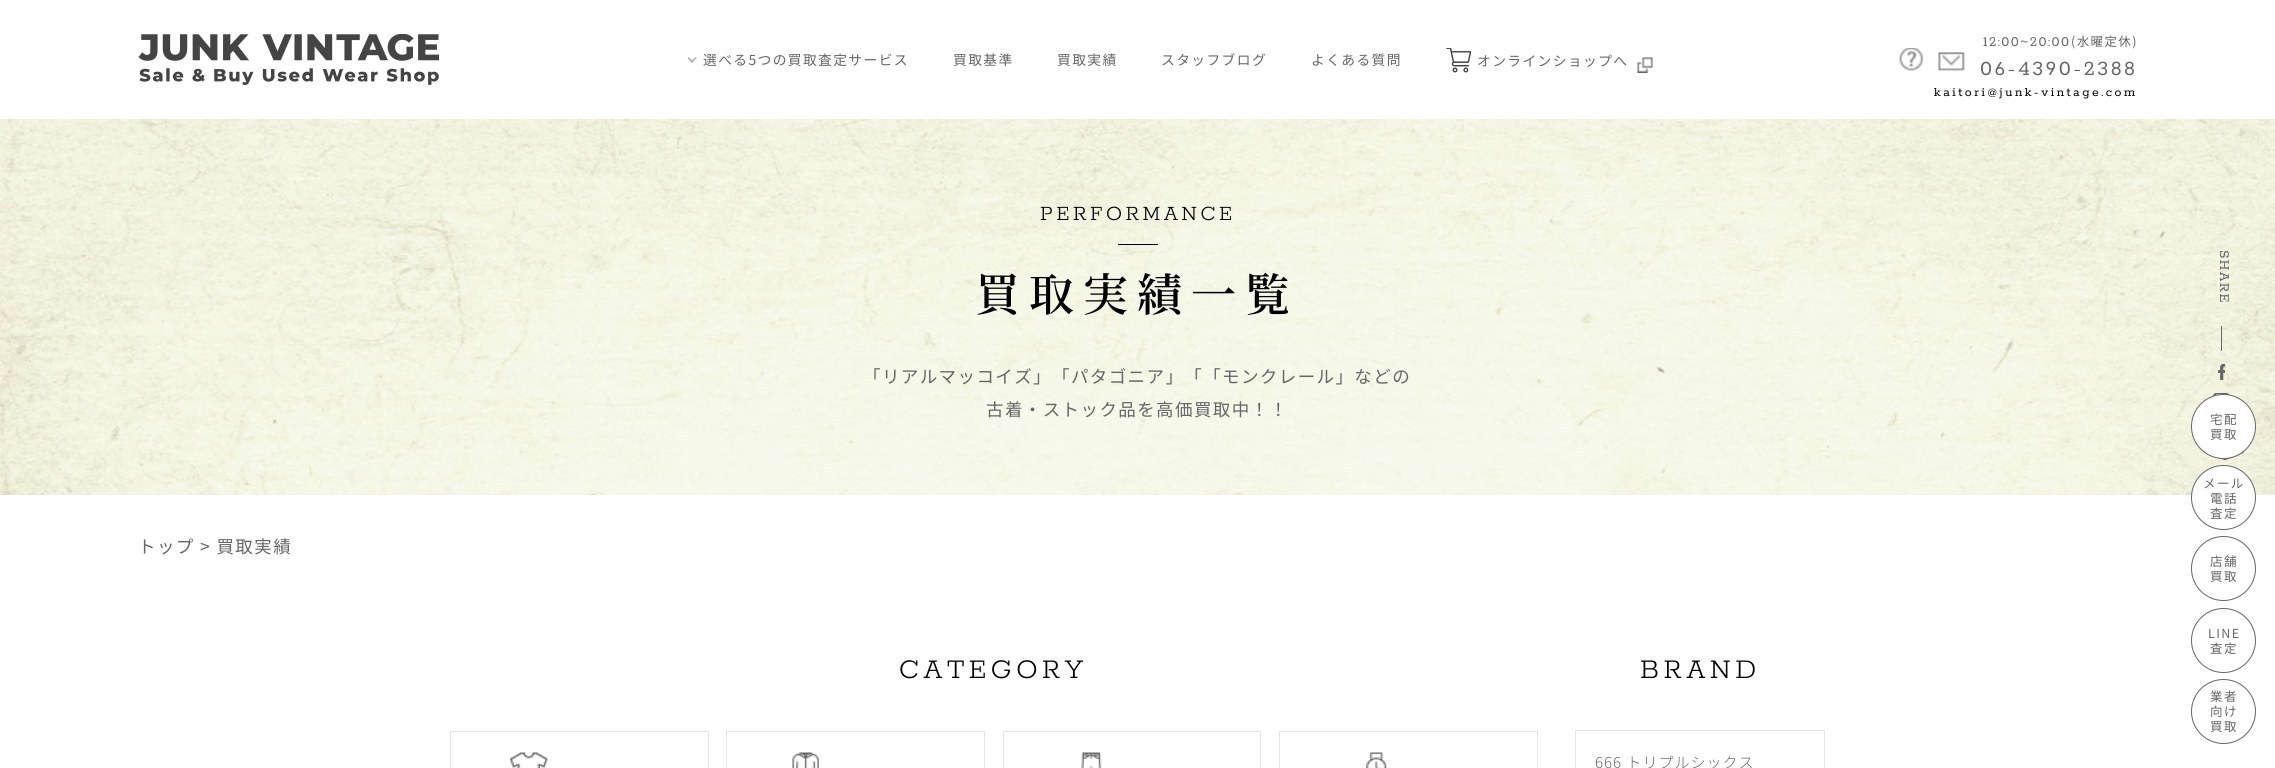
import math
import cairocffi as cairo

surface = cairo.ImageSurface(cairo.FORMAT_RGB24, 2275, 768)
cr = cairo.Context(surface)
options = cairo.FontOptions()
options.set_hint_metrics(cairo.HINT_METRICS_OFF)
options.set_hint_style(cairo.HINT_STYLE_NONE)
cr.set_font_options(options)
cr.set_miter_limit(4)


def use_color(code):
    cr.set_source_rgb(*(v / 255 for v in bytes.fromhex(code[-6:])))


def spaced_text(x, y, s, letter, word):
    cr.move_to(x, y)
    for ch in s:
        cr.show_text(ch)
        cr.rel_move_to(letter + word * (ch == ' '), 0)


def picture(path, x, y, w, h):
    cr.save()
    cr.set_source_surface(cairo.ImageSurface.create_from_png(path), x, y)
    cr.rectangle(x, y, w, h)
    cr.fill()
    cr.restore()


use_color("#ffffff")
cr.paint()
picture("img1.png", 138, 34, 301, 51)
picture("img2.png", 688, 57, 9, 6)
cr.select_font_face("Noto Sans JP")
cr.set_font_size(13.75)
use_color("#666666")
spaced_text(703, 65, "選べる5つの買取査定サービス", 1.4, 0)
spaced_text(953, 65, "買取基準", 1.4, 0)
spaced_text(1057, 65, "買取実績", 1.4, 0)
spaced_text(1161, 65, "スタッフブログ", 1.4, 0)
spaced_text(1311, 65, "よくある質問", 1.4, 0)
picture("img3.png", 1446, 48, 25, 25)
spaced_text(1477, 66, "オンラインショップへ", 1.4, 0)
picture("img4.png", 1637, 57, 16, 16)
picture("img5.png", 1899, 48, 24, 23)
cr.select_font_face("Rokkitt")
cr.set_font_size(15)
spaced_text(1983, 46, "12:00~20:00", 1.4, 0)
cr.select_font_face("Noto Sans JP")
cr.set_font_size(12.5)
spaced_text(2071, 46, "(水曜定休)", 1.4, 0)
cr.select_font_face("Rokkitt")
cr.set_font_size(22.5)
spaced_text(1980, 75, "06-4390-2388", 2.5, 0)
cr.set_font_size(13.75)
use_color("#000000")
spaced_text(1934, 96, "kaitori@junk-vintage.com", 2.5, 0)
picture("img6.png", 1938, 52, 27, 19)
picture("img7.png", 0, 119, 2275, 376)
cr.select_font_face("Rokkitt Light")
cr.set_font_size(22.5)
spaced_text(1040, 220, "PERFORMANCE", 3.4, 0)
cr.rectangle(1118, 244, 40, 1)
cr.fill()
cr.select_font_face("Noto Serif JP ExtraLight")
cr.set_font_size(45)
spaced_text(975, 311, "買取実績一覧", 9, 0)
cr.select_font_face("Noto Sans JP")
cr.set_font_size(17.5)
use_color("#666666")
spaced_text(863, 383, "「リアルマッコイズ」「パタゴニア」「「モンクレール」などの", 1.4, 0)
spaced_text(986, 416, "古着・ストック品を高価買取中！！", 1.4, 0)
cr.select_font_face("Rokkitt")
cr.set_font_size(15)
cr.save()
cr.translate(2220, 250)
cr.rotate(90 * math.pi / 180)
spaced_text(0, 0, "SHARE", 1.4, 0)
cr.restore()
cr.rectangle(2221, 326, 1, 25)
cr.fill()
picture("img8.png", 2218, 364, 7, 16)
picture("img9.png", 2213, 393, 17, 3)
picture("img10.png", 2206, 451, 38, 10)
cr.select_font_face("Noto Sans JP")
cr.set_font_size(17.5)
spaced_text(138, 553, "トップ > 買取実績", 1.4, 0)
cr.select_font_face("Rokkitt Light")
cr.set_font_size(30)
use_color("#000000")
spaced_text(899, 678, "CATEGORY", 4.5, 0)
cr.rectangle(450.5, 731.5, 258, 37)
use_color("#e5e5e5")
cr.set_line_width(1)
cr.stroke()
picture("img11.png", 510, 752, 38, 16)
cr.rectangle(726.5, 731.5, 258, 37)
cr.stroke()
picture("img12.png", 792, 752, 27, 16)
cr.rectangle(1003.5, 731.5, 257, 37)
cr.stroke()
picture("img13.png", 1081, 752, 21, 16)
cr.rectangle(1279.5, 731.5, 258, 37)
cr.stroke()
picture("img14.png", 1366, 752, 21, 16)
use_color("#000000")
spaced_text(1640, 678, "BRAND", 4.5, 0)
cr.rectangle(1575.5, 730.5, 249, 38)
use_color("#e5e5e5")
cr.stroke()
cr.select_font_face("Noto Sans JP Light")
cr.set_font_size(15)
use_color("#666666")
spaced_text(1595, 768, "666 トリプルシックス", 1, 0)
use_color("#ffffff")
cr.new_path()
cr.arc(2223.5, 426.5, 32, 0, 2 * math.pi)
cr.fill_preserve()
use_color("#666666")
cr.stroke()
cr.select_font_face("Noto Sans JP")
cr.set_font_size(12.5)
spaced_text(2210, 424, "宅配", 1.4, 0)
spaced_text(2210, 439, "買取", 1.4, 0)
use_color("#ffffff")
cr.new_path()
cr.arc(2223.5, 497.5, 32, 0, 2 * math.pi)
cr.fill_preserve()
use_color("#666666")
cr.stroke()
spaced_text(2203, 488, "メール", 1.4, 0)
spaced_text(2210, 503, "電話", 1.4, 0)
spaced_text(2210, 518, "査定", 1.4, 0)
cr.new_path()
cr.arc(2223.5, 568.5, 32, 0, 2 * math.pi)
cr.stroke()
spaced_text(2210, 566, "店舗", 1.4, 0)
spaced_text(2210, 581, "買取", 1.4, 0)
cr.new_path()
cr.arc(2223.5, 640.5, 32, 0, 2 * math.pi)
cr.stroke()
spaced_text(2208, 638, "LINE", 1.4, 0)
spaced_text(2210, 653, "査定", 1.4, 0)
cr.new_path()
cr.arc(2223.5, 711.5, 32, 0, 2 * math.pi)
cr.stroke()
spaced_text(2210, 701, "業者", 1.4, 0)
spaced_text(2210, 716, "向け", 1.4, 0)
spaced_text(2210, 731, "買取", 1.4, 0)
surface.write_to_png("result.png")
